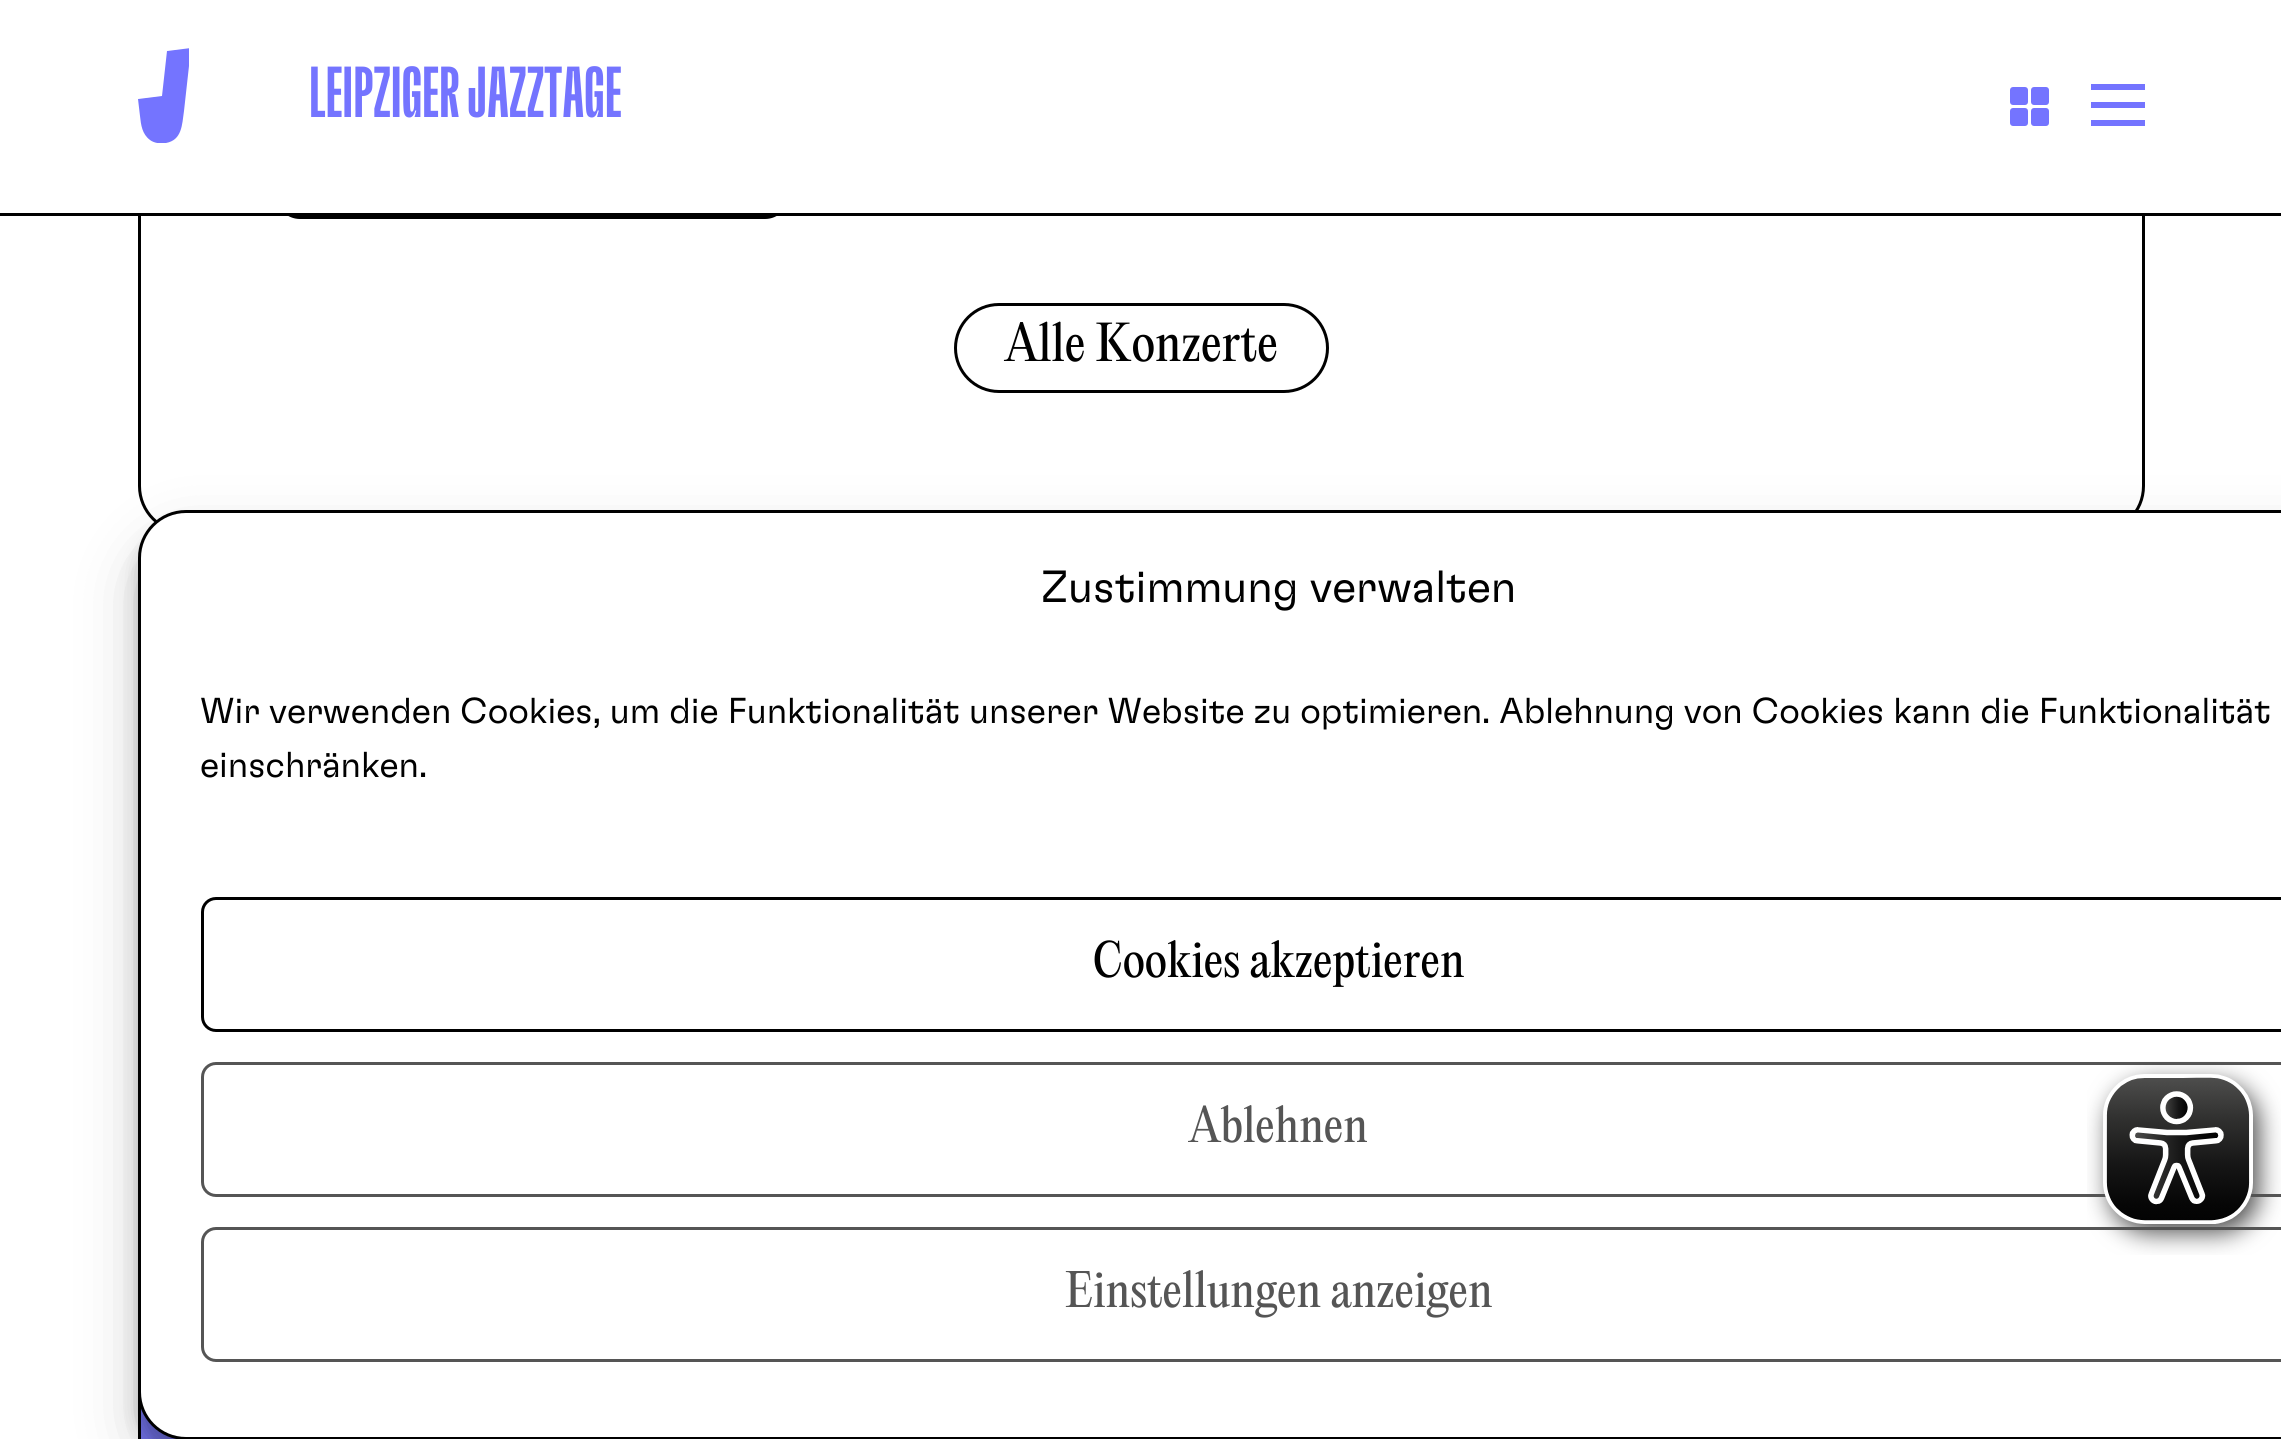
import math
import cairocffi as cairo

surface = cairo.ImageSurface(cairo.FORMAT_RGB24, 2281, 1439)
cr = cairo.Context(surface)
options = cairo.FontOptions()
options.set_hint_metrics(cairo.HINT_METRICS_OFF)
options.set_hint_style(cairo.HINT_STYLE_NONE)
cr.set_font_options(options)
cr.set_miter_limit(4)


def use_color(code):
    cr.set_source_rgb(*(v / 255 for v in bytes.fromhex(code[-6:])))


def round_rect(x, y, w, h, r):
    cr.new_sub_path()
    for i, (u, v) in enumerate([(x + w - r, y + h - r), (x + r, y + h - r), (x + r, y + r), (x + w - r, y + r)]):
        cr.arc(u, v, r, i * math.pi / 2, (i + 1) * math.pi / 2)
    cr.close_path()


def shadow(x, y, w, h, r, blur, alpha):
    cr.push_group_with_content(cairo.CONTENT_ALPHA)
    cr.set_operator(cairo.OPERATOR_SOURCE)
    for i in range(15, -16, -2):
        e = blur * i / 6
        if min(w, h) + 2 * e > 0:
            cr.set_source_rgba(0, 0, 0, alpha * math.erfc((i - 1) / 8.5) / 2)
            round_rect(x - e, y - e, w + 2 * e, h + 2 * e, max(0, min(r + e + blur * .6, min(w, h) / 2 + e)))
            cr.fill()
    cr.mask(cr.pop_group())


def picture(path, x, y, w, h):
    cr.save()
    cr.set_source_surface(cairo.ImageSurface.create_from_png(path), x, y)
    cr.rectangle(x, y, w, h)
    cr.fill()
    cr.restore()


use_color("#ffffff")
cr.paint()
round_rect(139.5, -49.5, 2004, 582, 46.5)
use_color("#000000")
cr.set_line_width(3)
cr.stroke()
round_rect(277.5, -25.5, 510, 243, 22.5)
cr.stroke()
use_color("#ffffff")
cr.rectangle(138, 0, 2007, 213)
cr.fill()
use_color("#000000")
cr.rectangle(0, 213, 2281, 3)
cr.fill()
cr.save()
cr.rectangle(138, 48, 51, 95)
cr.clip()
use_color("#7474ff")
cr.new_path()
cr.move_to(162, 96)
cr.line_to(138, 99)
cr.line_to(140, 116)
cr.curve_to(141, 125, 142, 134, 150, 140)
cr.curve_to(154, 143, 160, 144, 166, 143)
cr.curve_to(182, 140, 182, 125, 184, 111)
cr.line_to(191, 48)
cr.line_to(167, 51)
cr.close_path()
cr.fill()
cr.restore()
cr.select_font_face("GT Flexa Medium")
cr.set_font_size(72)
use_color("#7474ff")
cr.move_to(309, 117)
cr.show_text("LEIPZIGER JAZZTAGE")
picture("img1.png", 2010, 87, 39, 39)
cr.rectangle(2091, 84, 54, 6)
cr.fill()
cr.rectangle(2091, 102, 54, 6)
cr.fill()
cr.rectangle(2091, 120, 54, 6)
cr.fill()
round_rect(955.5, 304.5, 372, 87, 43.5)
use_color("#000000")
cr.stroke()
cr.select_font_face("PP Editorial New")
cr.set_font_size(48)
cr.move_to(1005, 361)
cr.show_text("Alle Konzerte")
cr.rectangle(139.5, 679.5, 2004, 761)
cr.stroke()
picture("img2.png", 141, 1408, 36, 31)
cr.set_source_rgba(0.455, 0.455, 1, 0.9)
cr.rectangle(141, 1408, 36, 31)
cr.fill()
use_color("#000000")
shadow(138, 528, 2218, 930, 48, 9, 0.23)
shadow(138, 540, 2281, 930, 48, 30, 0.19)
use_color("#ffffff")
round_rect(139.5, 511.5, 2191, 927, 46.5)
cr.fill_preserve()
use_color("#000000")
cr.stroke()
cr.select_font_face("GT Flexa Light")
cr.set_font_size(45)
cr.move_to(1041, 602)
cr.show_text("Zustimmung verwalten")
cr.set_font_size(36)
cr.move_to(200, 723)
cr.show_text("Wir verwenden Cookies, um die Funktionalität unserer Website zu optimieren. Ablehnung von Cookies kann die Funktionalität")
cr.move_to(200, 777)
cr.show_text("einschränken.")
round_rect(202.5, 898.5, 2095, 132, 13.5)
cr.stroke()
cr.select_font_face("PP Editorial New")
cr.set_font_size(45)
cr.move_to(1093, 977)
cr.show_text("Cookies akzeptieren")
round_rect(202.5, 1063.5, 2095, 132, 13.5)
use_color("#555555")
cr.stroke()
cr.move_to(1189, 1142)
cr.show_text("Ablehnen")
round_rect(202.5, 1228.5, 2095, 132, 13.5)
cr.stroke()
cr.move_to(1065, 1307)
cr.show_text("Einstellungen anzeigen")
picture("img3.png", 2087, 1061, 194, 194)
surface.write_to_png("result.png")
